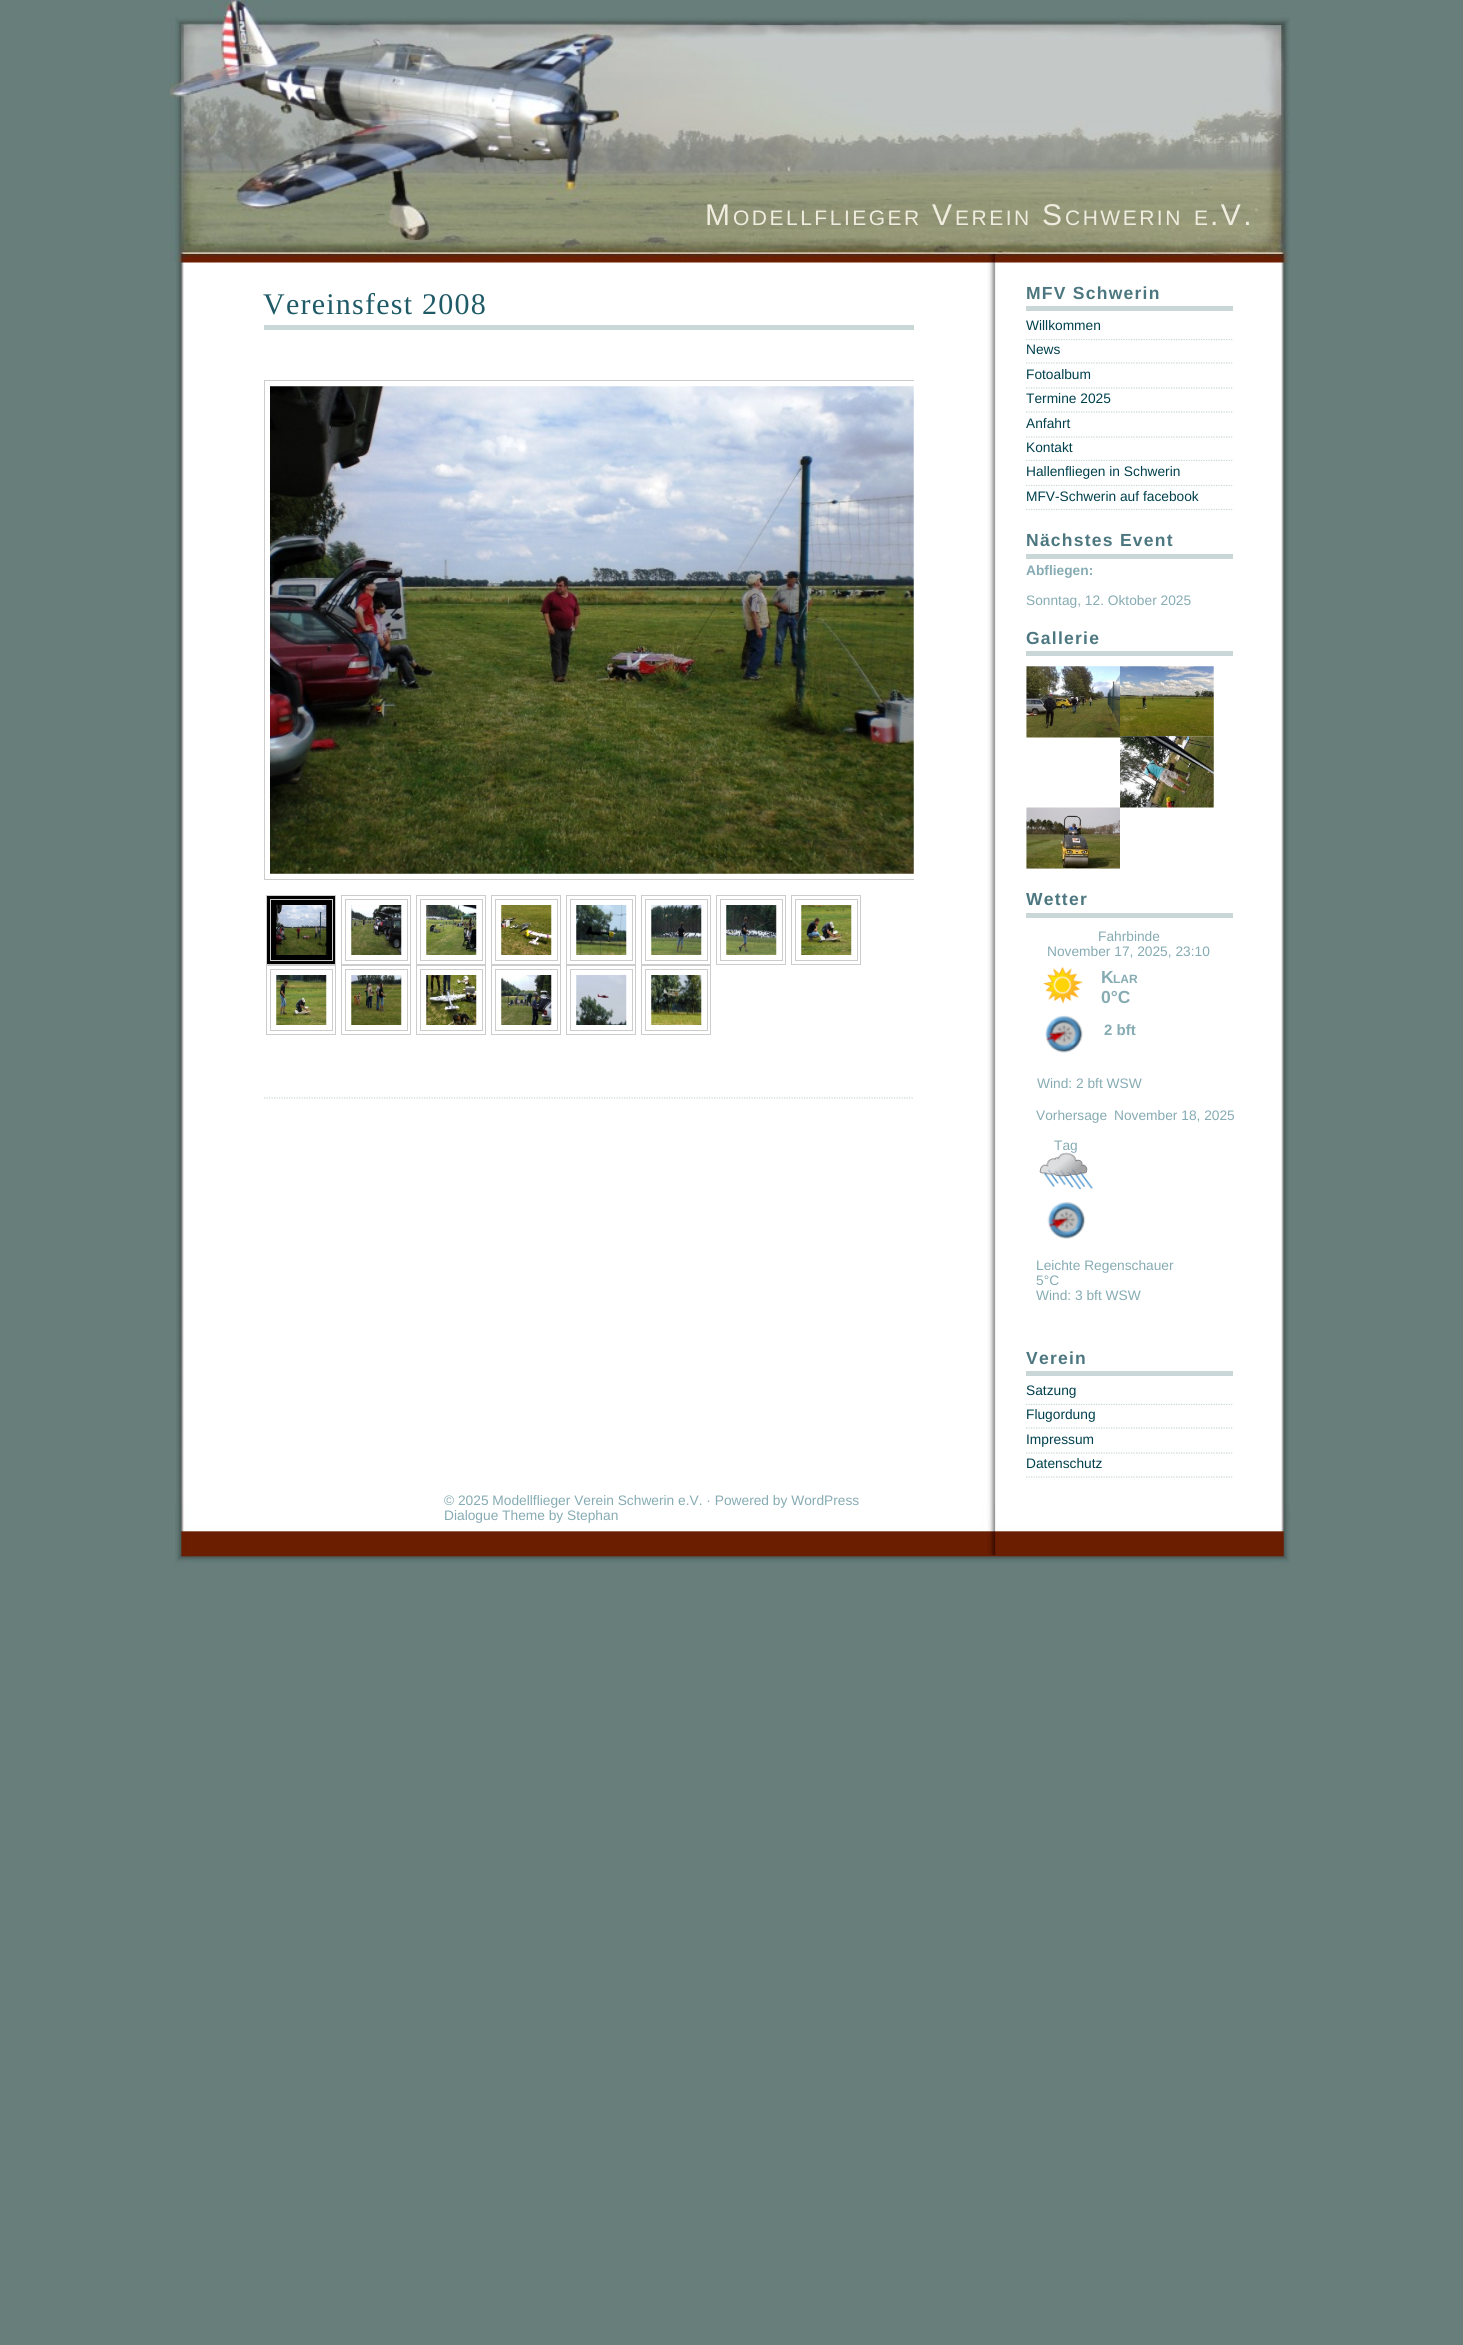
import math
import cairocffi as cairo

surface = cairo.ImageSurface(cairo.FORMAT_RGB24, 1463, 2345)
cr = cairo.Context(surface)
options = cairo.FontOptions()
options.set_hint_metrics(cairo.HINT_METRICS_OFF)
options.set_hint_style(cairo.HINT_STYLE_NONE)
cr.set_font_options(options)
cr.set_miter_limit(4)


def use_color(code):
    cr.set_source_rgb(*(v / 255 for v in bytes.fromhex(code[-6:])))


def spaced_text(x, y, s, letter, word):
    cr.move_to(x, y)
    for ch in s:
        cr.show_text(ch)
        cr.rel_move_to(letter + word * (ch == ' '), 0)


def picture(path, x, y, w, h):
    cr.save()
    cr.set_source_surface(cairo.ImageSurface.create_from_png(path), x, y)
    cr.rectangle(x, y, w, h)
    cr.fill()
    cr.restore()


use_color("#687e7b")
cr.paint()
picture("img1.png", 176, 262, 1113, 1243)
picture("img2.png", 170, 0, 1120, 263)
cr.select_font_face("Liberation Sans")
cr.set_font_size(30)
use_color("#f0ecdf")
spaced_text(705, 225, "M", 2.5, 0)
cr.set_font_size(21)
spaced_text(733, 225, "ODELLFLIEGER", 2.5, 0)
cr.set_font_size(30)
spaced_text(932, 225, "V", 2.5, 0)
cr.set_font_size(21)
spaced_text(955, 225, "EREIN", 2.5, 0)
cr.set_font_size(30)
spaced_text(1042, 225, "S", 2.5, 0)
cr.set_font_size(21)
spaced_text(1065, 225, "CHWERIN", 2.5, 0)
spaced_text(1194, 225, "E", 2.5, 0)
cr.set_font_size(30)
spaced_text(1210, 225, ".V.", 2.5, 0)
use_color("#cad7d9")
cr.rectangle(264, 325, 650, 5)
cr.fill()
cr.select_font_face("Liberation Serif")
use_color("#1f5a66")
spaced_text(263, 314, "Vereinsfest 2008", 1.25, 0)
cr.save()
cr.rectangle(264, 380, 650, 655)
cr.clip()
cr.rectangle(264.5, 380.5, 661, 499)
use_color("#cccccc")
cr.set_line_width(1)
cr.stroke()
cr.restore()
picture("img3.png", 270, 386, 644, 488)
use_color("#000000")
cr.rectangle(266.5, 895.5, 69, 69)
cr.fill_preserve()
use_color("#cccccc")
cr.set_line_width(1)
cr.stroke()
cr.rectangle(270.5, 899.5, 62, 61)
cr.stroke()
picture("img4.png", 276, 905, 51, 50)
cr.rectangle(341.5, 895.5, 69, 69)
cr.stroke()
cr.rectangle(345.5, 899.5, 62, 61)
cr.stroke()
picture("img5.png", 351, 905, 51, 50)
cr.rectangle(416.5, 895.5, 69, 69)
cr.stroke()
cr.rectangle(420.5, 899.5, 62, 61)
cr.stroke()
picture("img6.png", 426, 905, 51, 50)
cr.rectangle(491.5, 895.5, 69, 69)
cr.stroke()
cr.rectangle(495.5, 899.5, 62, 61)
cr.stroke()
picture("img7.png", 501, 905, 51, 50)
cr.rectangle(566.5, 895.5, 69, 69)
cr.stroke()
cr.rectangle(570.5, 899.5, 62, 61)
cr.stroke()
picture("img8.png", 576, 905, 51, 50)
cr.rectangle(641.5, 895.5, 69, 69)
cr.stroke()
cr.rectangle(645.5, 899.5, 62, 61)
cr.stroke()
picture("img9.png", 651, 905, 51, 50)
cr.rectangle(716.5, 895.5, 69, 69)
cr.stroke()
cr.rectangle(720.5, 899.5, 62, 61)
cr.stroke()
picture("img10.png", 726, 905, 51, 50)
cr.rectangle(791.5, 895.5, 69, 69)
cr.stroke()
cr.rectangle(795.5, 899.5, 62, 61)
cr.stroke()
picture("img11.png", 801, 905, 51, 50)
cr.rectangle(266.5, 965.5, 69, 69)
cr.stroke()
cr.rectangle(270.5, 969.5, 62, 61)
cr.stroke()
picture("img12.png", 276, 975, 51, 50)
cr.rectangle(341.5, 965.5, 69, 69)
cr.stroke()
cr.rectangle(345.5, 969.5, 62, 61)
cr.stroke()
picture("img13.png", 351, 975, 51, 50)
cr.rectangle(416.5, 965.5, 69, 69)
cr.stroke()
cr.rectangle(420.5, 969.5, 62, 61)
cr.stroke()
picture("img14.png", 426, 975, 51, 50)
cr.rectangle(491.5, 965.5, 69, 69)
cr.stroke()
cr.rectangle(495.5, 969.5, 62, 61)
cr.stroke()
picture("img15.png", 501, 975, 51, 50)
cr.rectangle(566.5, 965.5, 69, 69)
cr.stroke()
cr.rectangle(570.5, 969.5, 62, 61)
cr.stroke()
picture("img16.png", 576, 975, 51, 50)
cr.rectangle(641.5, 965.5, 69, 69)
cr.stroke()
cr.rectangle(645.5, 969.5, 62, 61)
cr.stroke()
picture("img17.png", 651, 975, 51, 50)
cr.new_path()
cr.move_to(264, 1098)
cr.line_to(914, 1098)
use_color("#cad6d9")
cr.set_line_width(1.2)
cr.set_dash([1.25, 1.25])
cr.stroke()
use_color("#cad7d9")
cr.rectangle(1026, 306, 207, 5)
cr.fill()
cr.select_font_face("Liberation Sans", cairo.FONT_SLANT_NORMAL, cairo.FONT_WEIGHT_BOLD)
cr.set_font_size(17.5)
use_color("#4d7780")
spaced_text(1026, 299, "MFV Schwerin", 1.25, 0)
cr.new_path()
cr.move_to(1026, 339.5)
cr.line_to(1232.5, 339.5)
use_color("#cad6d9")
cr.stroke()
cr.select_font_face("Liberation Sans")
cr.set_font_size(13.75)
use_color("#00404d")
cr.move_to(1026, 330)
cr.show_text("Willkommen")
cr.new_path()
cr.move_to(1026, 363)
cr.line_to(1232.5, 363)
use_color("#cad6d9")
cr.stroke()
use_color("#00404d")
cr.move_to(1026, 354)
cr.show_text("News")
cr.new_path()
cr.move_to(1026, 388)
cr.line_to(1232.5, 388)
use_color("#cad6d9")
cr.stroke()
use_color("#00404d")
cr.move_to(1026, 379)
cr.show_text("Fotoalbum")
cr.new_path()
cr.move_to(1026, 412)
cr.line_to(1232.5, 412)
use_color("#cad6d9")
cr.stroke()
use_color("#00404d")
cr.move_to(1026, 403)
cr.show_text("Termine 2025")
cr.new_path()
cr.move_to(1026, 437)
cr.line_to(1232.5, 437)
use_color("#cad6d9")
cr.stroke()
use_color("#00404d")
cr.move_to(1026, 428)
cr.show_text("Anfahrt")
cr.new_path()
cr.move_to(1026, 460.5)
cr.line_to(1232.5, 460.5)
use_color("#cad6d9")
cr.stroke()
use_color("#00404d")
cr.move_to(1026, 452)
cr.show_text("Kontakt")
cr.new_path()
cr.move_to(1026, 485.5)
cr.line_to(1232.5, 485.5)
use_color("#cad6d9")
cr.stroke()
use_color("#00404d")
cr.move_to(1026, 476)
cr.show_text("Hallenfliegen in Schwerin")
cr.new_path()
cr.move_to(1026, 509.5)
cr.line_to(1232.5, 509.5)
use_color("#cad6d9")
cr.stroke()
use_color("#00404d")
cr.move_to(1026, 501)
cr.show_text("MFV-Schwerin auf facebook")
use_color("#cad7d9")
cr.rectangle(1026, 554, 207, 5)
cr.fill()
cr.select_font_face("Liberation Sans", cairo.FONT_SLANT_NORMAL, cairo.FONT_WEIGHT_BOLD)
cr.set_font_size(17.5)
use_color("#4d7780")
spaced_text(1026, 546, "Nächstes Event", 1.25, 0)
cr.set_font_size(13.75)
use_color("#86abb3")
cr.move_to(1026, 575)
cr.show_text("Abfliegen:")
cr.select_font_face("Liberation Sans")
cr.move_to(1026, 605)
cr.show_text("Sonntag, 12. Oktober 2025")
use_color("#cad7d9")
cr.rectangle(1026, 651, 207, 5)
cr.fill()
cr.select_font_face("Liberation Sans", cairo.FONT_SLANT_NORMAL, cairo.FONT_WEIGHT_BOLD)
cr.set_font_size(17.5)
use_color("#4d7780")
spaced_text(1026, 644, "Gallerie", 1.25, 0)
picture("img18.png", 1026, 666, 94, 72)
picture("img19.png", 1120, 666, 94, 71)
picture("img20.png", 1120, 736, 94, 72)
picture("img21.png", 1026, 807, 94, 62)
use_color("#cad7d9")
cr.rectangle(1026, 913, 207, 5)
cr.fill()
use_color("#4d7780")
spaced_text(1026, 905, "Wetter", 1.25, 0)
cr.select_font_face("Liberation Sans")
cr.set_font_size(13.75)
use_color("#86abb3")
cr.move_to(1098, 941)
cr.show_text("Fahrbinde")
cr.move_to(1047, 956)
cr.show_text("November 17, 2025, 23:10")
picture("img22.png", 1043, 967, 40, 37)
picture("img23.png", 1045, 1015, 38, 38)
cr.select_font_face("Liberation Sans", cairo.FONT_SLANT_NORMAL, cairo.FONT_WEIGHT_BOLD)
cr.set_font_size(17.5)
cr.move_to(1101, 983)
cr.show_text("K")
cr.set_font_size(12)
cr.move_to(1113, 983)
cr.show_text("LAR")
cr.set_font_size(17.5)
cr.move_to(1101, 1003)
cr.show_text("0°C")
cr.set_font_size(15)
cr.move_to(1104, 1035)
cr.show_text("2 bft")
cr.select_font_face("Liberation Sans")
cr.set_font_size(13.75)
cr.move_to(1037, 1088)
cr.show_text("Wind: 2 bft WSW")
cr.move_to(1036, 1120)
cr.show_text("Vorhersage")
cr.move_to(1114, 1120)
cr.show_text("November 18, 2025")
cr.move_to(1054, 1150)
cr.show_text("Tag")
picture("img24.png", 1039, 1152, 55, 38)
picture("img25.png", 1047, 1201, 39, 38)
cr.move_to(1036, 1270)
cr.show_text("Leichte Regenschauer")
cr.move_to(1036, 1285)
cr.show_text("5°C")
cr.move_to(1036, 1300)
cr.show_text("Wind: 3 bft WSW")
use_color("#cad7d9")
cr.rectangle(1026, 1371, 207, 5)
cr.fill()
cr.select_font_face("Liberation Sans", cairo.FONT_SLANT_NORMAL, cairo.FONT_WEIGHT_BOLD)
cr.set_font_size(17.5)
use_color("#4d7780")
spaced_text(1026, 1364, "Verein", 1.25, 0)
cr.new_path()
cr.move_to(1026, 1404.5)
cr.line_to(1232.5, 1404.5)
use_color("#cad6d9")
cr.stroke()
cr.select_font_face("Liberation Sans")
cr.set_font_size(13.75)
use_color("#00404d")
cr.move_to(1026, 1395)
cr.show_text("Satzung")
cr.new_path()
cr.move_to(1026, 1428)
cr.line_to(1232.5, 1428)
use_color("#cad6d9")
cr.stroke()
use_color("#00404d")
cr.move_to(1026, 1419)
cr.show_text("Flugordung")
cr.new_path()
cr.move_to(1026, 1453)
cr.line_to(1232.5, 1453)
use_color("#cad6d9")
cr.stroke()
use_color("#00404d")
cr.move_to(1026, 1444)
cr.show_text("Impressum")
cr.new_path()
cr.move_to(1026, 1477)
cr.line_to(1232.5, 1477)
use_color("#cad6d9")
cr.stroke()
use_color("#00404d")
cr.move_to(1026, 1468)
cr.show_text("Datenschutz")
picture("img26.png", 175, 1505, 1115, 75)
use_color("#86abb3")
cr.move_to(444, 1505)
cr.show_text("© 2025 Modellflieger Verein Schwerin e.V. · Powered by WordPress")
cr.move_to(444, 1520)
cr.show_text("Dialogue Theme by Stephan")
surface.write_to_png("result.png")
